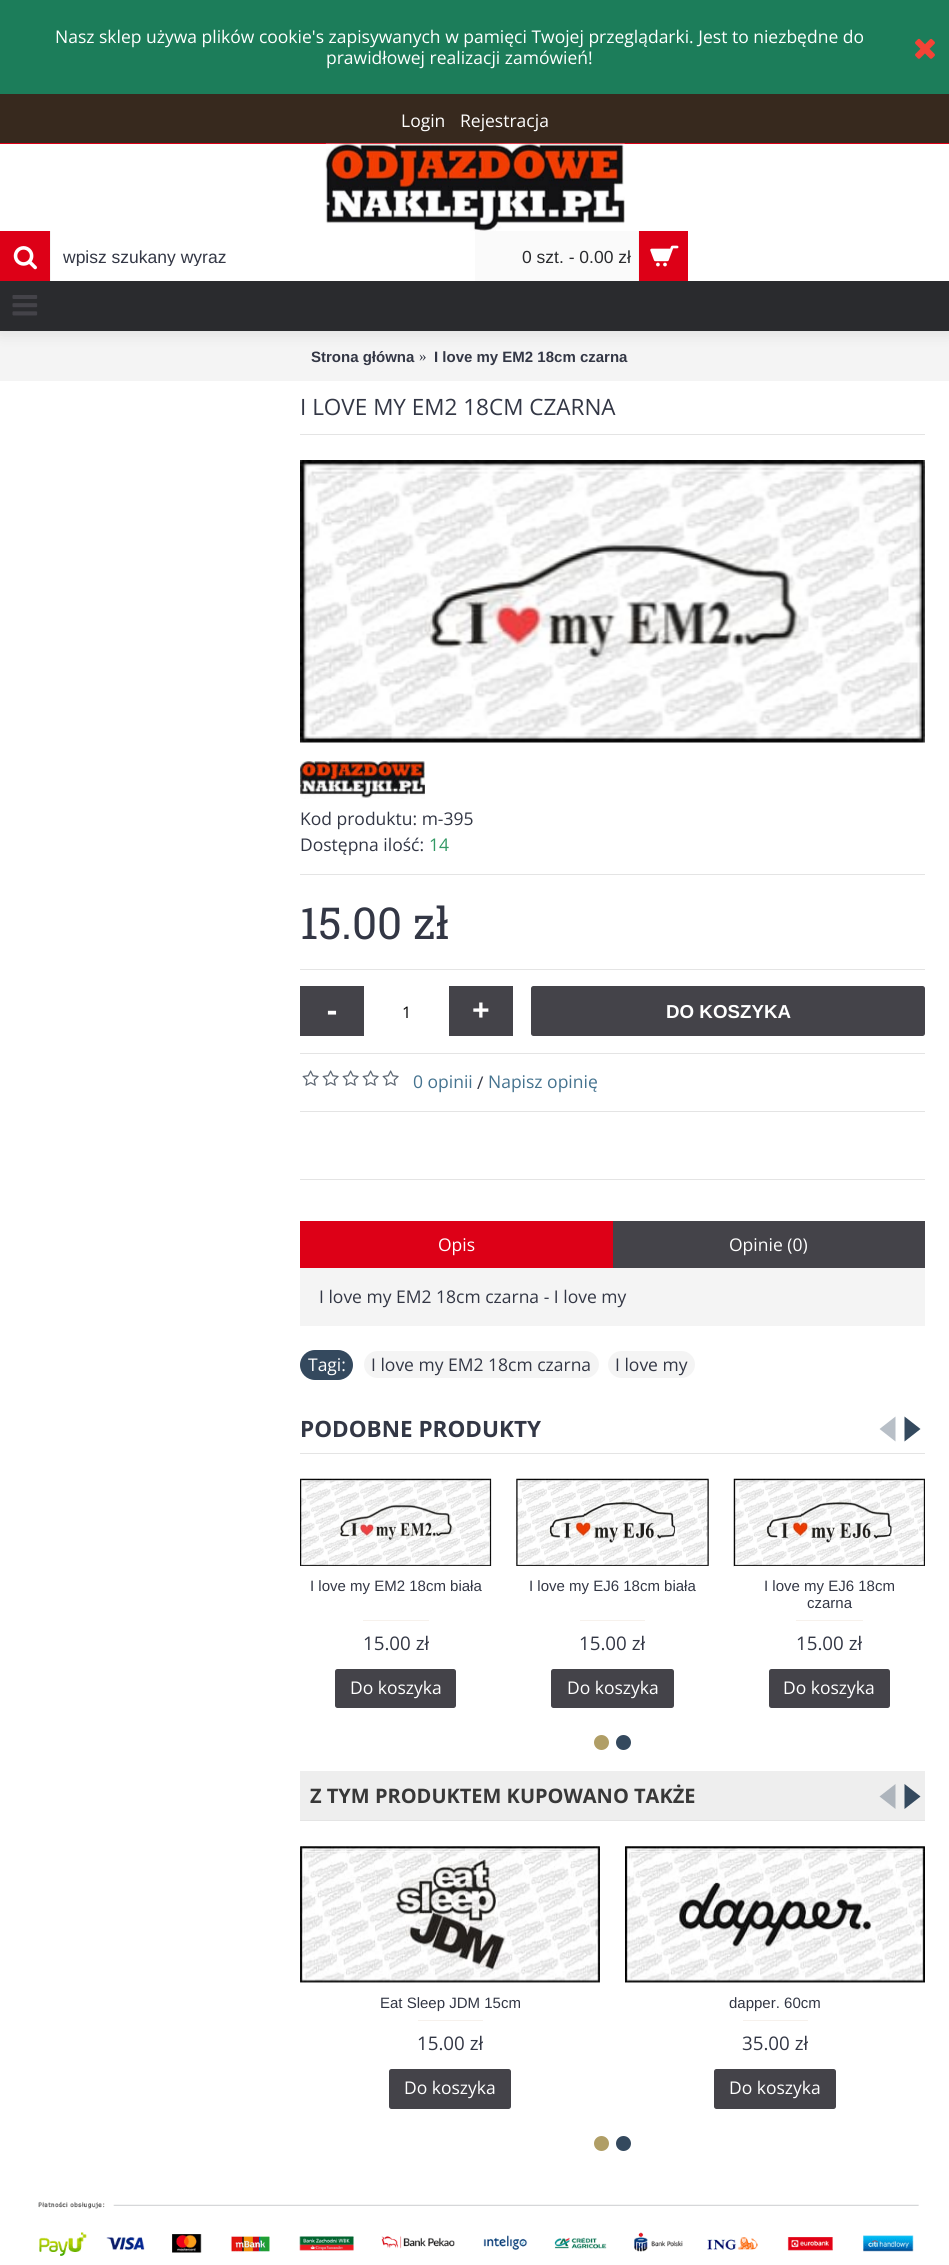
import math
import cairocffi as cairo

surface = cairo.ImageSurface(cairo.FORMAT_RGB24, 949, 2265)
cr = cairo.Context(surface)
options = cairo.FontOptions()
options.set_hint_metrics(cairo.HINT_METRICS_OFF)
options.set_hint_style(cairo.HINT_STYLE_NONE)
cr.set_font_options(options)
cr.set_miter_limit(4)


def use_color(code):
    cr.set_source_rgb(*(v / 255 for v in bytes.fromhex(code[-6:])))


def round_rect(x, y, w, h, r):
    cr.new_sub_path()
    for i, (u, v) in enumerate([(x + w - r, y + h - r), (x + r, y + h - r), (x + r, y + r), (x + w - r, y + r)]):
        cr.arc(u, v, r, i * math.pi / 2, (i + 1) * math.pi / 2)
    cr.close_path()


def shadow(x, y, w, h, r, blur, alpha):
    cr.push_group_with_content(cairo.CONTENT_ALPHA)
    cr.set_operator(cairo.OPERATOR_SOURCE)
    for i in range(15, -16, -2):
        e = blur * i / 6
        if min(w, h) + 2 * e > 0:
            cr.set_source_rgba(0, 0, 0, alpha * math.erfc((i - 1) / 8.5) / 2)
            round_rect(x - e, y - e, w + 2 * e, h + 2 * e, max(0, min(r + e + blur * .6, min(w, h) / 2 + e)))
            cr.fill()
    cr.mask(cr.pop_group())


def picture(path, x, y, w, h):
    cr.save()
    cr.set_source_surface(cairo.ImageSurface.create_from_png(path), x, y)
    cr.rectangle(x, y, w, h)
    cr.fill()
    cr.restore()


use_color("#ffffff")
cr.paint()
use_color("#f4f4f4")
cr.rectangle(0, 331, 949, 50)
cr.fill()
use_color("#000000")
shadow(0, 95, 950, 238, 0, 7.5, 0.1)
use_color("#1c7d5a")
cr.rectangle(0, 0, 949, 94)
cr.fill()
cr.select_font_face("Open Sans")
cr.set_font_size(17.5)
use_color("#ffffff")
cr.move_to(55, 43)
cr.show_text("Nasz sklep używa plików cookie's zapisywanych w pamięci Twojej przeglądarki. Jest to niezbędne do")
cr.move_to(326, 64)
cr.show_text("prawidłowej realizacji zamówień!")
picture("img1.png", 915, 38, 20, 21)
cr.rectangle(0, 144, 949, 137)
cr.fill()
use_color("#37291e")
cr.rectangle(0, 94, 949, 49)
cr.fill()
use_color("#dd0017")
cr.rectangle(0, 143, 949, 1)
cr.fill()
use_color("#ffffff")
cr.move_to(401, 127)
cr.show_text("Login")
cr.move_to(460, 127)
cr.show_text("Rejestracja")
picture("img2.png", 325, 143, 300, 88)
use_color("#dd0017")
cr.rectangle(0, 231, 50, 50)
cr.fill()
use_color("#f4f4f4")
cr.rectangle(50, 231, 1, 50)
cr.fill()
picture("img3.png", 13, 246, 24, 24)
cr.save()
cr.rectangle(63, 246, 412, 20)
cr.clip()
cr.select_font_face("Liberation Sans")
use_color("#333745")
cr.move_to(63, 263)
cr.show_text("wpisz szukany wyraz")
cr.restore()
use_color("#fafafa")
cr.rectangle(475, 231, 163, 50)
cr.fill()
cr.select_font_face("Liberation Sans")
use_color("#2a2b2e")
cr.move_to(522, 263)
cr.show_text("0 szt. - 0.00 zł")
use_color("#dd0017")
cr.rectangle(639, 231, 49, 50)
cr.fill()
use_color("#f4f4f4")
cr.rectangle(638, 231, 1, 50)
cr.fill()
picture("img4.png", 650, 245, 29, 22)
use_color("#2a2b2e")
cr.rectangle(0, 281, 949, 50)
cr.fill()
picture("img5.png", 12, 295, 26, 21)
cr.select_font_face("Liberation Sans", cairo.FONT_SLANT_NORMAL, cairo.FONT_WEIGHT_BOLD)
cr.set_font_size(15)
use_color("#333745")
cr.move_to(311, 362)
cr.show_text("Strona główna")
cr.select_font_face("Liberation Serif")
cr.move_to(419, 361)
cr.show_text("»")
cr.select_font_face("Liberation Sans", cairo.FONT_SLANT_NORMAL, cairo.FONT_WEIGHT_BOLD)
cr.move_to(434, 362)
cr.show_text("I love my EM2 18cm czarna")
use_color("#e4e4e4")
cr.rectangle(300, 434, 625, 1)
cr.fill()
cr.select_font_face("Open Sans")
cr.set_font_size(22.5)
use_color("#333745")
cr.move_to(300, 415)
cr.show_text("I LOVE MY EM2 18CM CZARNA")
picture("img6.png", 300, 460, 625, 283)
use_color("#e4e4e4")
cr.rectangle(300, 874, 625, 1)
cr.fill()
picture("img7.png", 300, 761, 125, 38)
cr.set_font_size(17.5)
use_color("#333745")
cr.move_to(300, 825)
cr.show_text("Kod produktu: m-395")
cr.move_to(300, 851)
cr.show_text("Dostępna ilość:")
use_color("#339965")
cr.move_to(429, 851)
cr.show_text("14")
use_color("#e4e4e4")
cr.rectangle(300, 969, 625, 1)
cr.fill()
cr.select_font_face("Roboto Slab")
cr.set_font_size(44)
use_color("#333745")
cr.move_to(300, 939)
cr.show_text("15.00 zł")
use_color("#e4e4e4")
cr.rectangle(300, 1053, 625, 1)
cr.fill()
use_color("#444349")
cr.rectangle(300, 986, 64, 50)
cr.fill()
cr.select_font_face("Open Sans", cairo.FONT_SLANT_NORMAL, cairo.FONT_WEIGHT_BOLD)
cr.set_font_size(31)
use_color("#ffffff")
cr.move_to(327, 1021)
cr.show_text("-")
cr.select_font_face("Open Sans")
cr.set_font_size(16)
use_color("#000000")
cr.move_to(402, 1018)
cr.show_text("1")
use_color("#444349")
cr.rectangle(449, 986, 64, 50)
cr.fill()
cr.select_font_face("Open Sans", cairo.FONT_SLANT_NORMAL, cairo.FONT_WEIGHT_BOLD)
cr.set_font_size(31)
use_color("#ffffff")
cr.move_to(472, 1021)
cr.show_text("+")
use_color("#444349")
round_rect(531, 986, 394, 50, 2.5)
cr.fill()
cr.select_font_face("Liberation Sans", cairo.FONT_SLANT_NORMAL, cairo.FONT_WEIGHT_BOLD)
cr.set_font_size(18.75)
use_color("#ffffff")
cr.move_to(666, 1018)
cr.show_text("DO KOSZYKA")
use_color("#e4e4e4")
cr.rectangle(300, 1111, 625, 1)
cr.fill()
picture("img8.png", 302, 1070, 17, 16)
picture("img8.png", 322, 1070, 17, 16)
picture("img8.png", 342, 1070, 17, 16)
picture("img8.png", 362, 1070, 17, 16)
picture("img8.png", 382, 1070, 17, 16)
cr.select_font_face("Open Sans")
cr.set_font_size(17.5)
use_color("#45738f")
cr.move_to(413, 1088)
cr.show_text("0 opinii")
use_color("#333745")
cr.move_to(477, 1089)
cr.show_text("/")
use_color("#45738f")
cr.move_to(488, 1088)
cr.show_text("Napisz opinię")
use_color("#e4e4e4")
cr.rectangle(300, 1179, 625, 1)
cr.fill()
use_color("#dd0017")
cr.rectangle(300, 1221, 313, 47)
cr.fill()
use_color("#ffffff")
cr.move_to(438, 1251)
cr.show_text("Opis")
use_color("#444349")
cr.rectangle(613, 1221, 312, 47)
cr.fill()
use_color("#ffffff")
cr.move_to(729, 1251)
cr.show_text("Opinie (0)")
use_color("#f4f4f4")
cr.rectangle(300, 1268, 625, 58)
cr.fill()
use_color("#333745")
cr.move_to(319, 1303)
cr.show_text("I love my EM2 18cm czarna - I love my")
use_color("#34495e")
round_rect(300, 1350, 53, 30, 15)
cr.fill()
use_color("#ffffff")
cr.move_to(308, 1371)
cr.show_text("Tagi:")
use_color("#f4f4f4")
round_rect(364, 1351, 235, 27, 13.5)
cr.fill()
use_color("#333745")
cr.move_to(371, 1371)
cr.show_text("I love my EM2 18cm czarna")
use_color("#f4f4f4")
round_rect(608, 1351, 87, 27, 13.5)
cr.fill()
use_color("#333745")
cr.move_to(615, 1371)
cr.show_text("I love my")
use_color("#e4e4e4")
cr.rectangle(300, 1453, 625, 1)
cr.fill()
cr.select_font_face("Open Sans", cairo.FONT_SLANT_NORMAL, cairo.FONT_WEIGHT_BOLD)
cr.set_font_size(22.5)
use_color("#333745")
cr.move_to(300, 1437)
cr.show_text("PODOBNE PRODUKTY")
use_color("#b8bfc7")
cr.new_path()
cr.move_to(895.5, 1441.5)
cr.line_to(895.5, 1416.5)
cr.line_to(879.5, 1429)
cr.close_path()
cr.fill()
use_color("#34495e")
cr.new_path()
cr.move_to(904.5, 1416.5)
cr.line_to(904.5, 1441.5)
cr.line_to(920.5, 1429)
cr.close_path()
cr.fill()
picture("img9.png", 300, 1478, 192, 89)
use_color("#ffffff")
cr.rectangle(300, 1566, 191, 1)
cr.fill()
cr.select_font_face("Liberation Sans")
cr.set_font_size(15)
use_color("#333745")
cr.move_to(310, 1591)
cr.show_text("I love my EM2 18cm biała")
use_color("#f6f1ec")
cr.rectangle(363, 1620, 66, 1)
cr.fill()
cr.select_font_face("Open Sans")
cr.set_font_size(18.75)
use_color("#333745")
cr.move_to(363, 1650)
cr.show_text("15.00 zł")
use_color("#444349")
round_rect(335, 1669, 121, 39, 2.5)
cr.fill()
cr.set_font_size(17.5)
use_color("#ffffff")
cr.move_to(350, 1694)
cr.show_text("Do koszyka")
picture("img10.png", 516, 1478, 193, 88)
cr.select_font_face("Liberation Sans")
cr.set_font_size(15)
use_color("#333745")
cr.move_to(529, 1591)
cr.show_text("I love my EJ6 18cm biała")
use_color("#f6f1ec")
cr.rectangle(580, 1620, 65, 1)
cr.fill()
cr.select_font_face("Open Sans")
cr.set_font_size(18.75)
use_color("#333745")
cr.move_to(579, 1650)
cr.show_text("15.00 zł")
use_color("#444349")
round_rect(551, 1669, 123, 39, 2.5)
cr.fill()
cr.set_font_size(17.5)
use_color("#ffffff")
cr.move_to(567, 1694)
cr.show_text("Do koszyka")
picture("img11.png", 733, 1478, 192, 89)
cr.rectangle(734, 1566, 191, 1)
cr.fill()
cr.select_font_face("Liberation Sans")
cr.set_font_size(15)
use_color("#333745")
cr.move_to(764, 1591)
cr.show_text("I love my EJ6 18cm")
cr.move_to(807, 1608)
cr.show_text("czarna")
use_color("#f6f1ec")
cr.rectangle(796, 1620, 67, 1)
cr.fill()
cr.select_font_face("Open Sans")
cr.set_font_size(18.75)
use_color("#333745")
cr.move_to(796, 1650)
cr.show_text("15.00 zł")
use_color("#444349")
round_rect(769, 1669, 121, 39, 2.5)
cr.fill()
cr.set_font_size(17.5)
use_color("#ffffff")
cr.move_to(783, 1694)
cr.show_text("Do koszyka")
use_color("#b09e66")
cr.new_path()
cr.arc(601.5, 1742.5, 7.5, 0, 2 * math.pi)
cr.fill()
use_color("#34495e")
cr.arc(623.5, 1742.5, 7.5, 0, 2 * math.pi)
cr.fill()
use_color("#eeeeee")
cr.rectangle(300, 1771, 625, 49)
cr.fill()
use_color("#e4e4e4")
cr.rectangle(300, 1820, 625, 1)
cr.fill()
cr.select_font_face("Open Sans", cairo.FONT_SLANT_NORMAL, cairo.FONT_WEIGHT_BOLD)
cr.set_font_size(20)
use_color("#383838")
cr.move_to(310, 1803)
cr.show_text("Z TYM PRODUKTEM KUPOWANO TAKŻE")
use_color("#adb4bc")
cr.new_path()
cr.move_to(895.5, 1809)
cr.line_to(895.5, 1784)
cr.line_to(879.5, 1796.5)
cr.close_path()
cr.fill()
use_color("#34495e")
cr.new_path()
cr.move_to(904.5, 1784)
cr.line_to(904.5, 1809)
cr.line_to(920.5, 1796.5)
cr.close_path()
cr.fill()
picture("img12.png", 300, 1846, 300, 137)
cr.select_font_face("Liberation Sans")
cr.set_font_size(15)
use_color("#333745")
cr.move_to(380, 2008)
cr.show_text("Eat Sleep JDM 15cm")
use_color("#f6f1ec")
cr.rectangle(418, 2020, 65, 1)
cr.fill()
cr.select_font_face("Open Sans")
cr.set_font_size(18.75)
use_color("#333745")
cr.move_to(417, 2050)
cr.show_text("15.00 zł")
use_color("#444349")
round_rect(389, 2069, 122, 40, 2.5)
cr.fill()
cr.set_font_size(17.5)
use_color("#ffffff")
cr.move_to(404, 2094)
cr.show_text("Do koszyka")
picture("img13.png", 625, 1846, 300, 137)
cr.select_font_face("Liberation Sans")
cr.set_font_size(15)
use_color("#333745")
cr.move_to(729, 2008)
cr.show_text("dapper. 60cm")
use_color("#f6f1ec")
cr.rectangle(743, 2020, 65, 1)
cr.fill()
cr.select_font_face("Open Sans")
cr.set_font_size(18.75)
use_color("#333745")
cr.move_to(742, 2050)
cr.show_text("35.00 zł")
use_color("#444349")
round_rect(714, 2069, 122, 40, 2.5)
cr.fill()
cr.set_font_size(17.5)
use_color("#ffffff")
cr.move_to(729, 2094)
cr.show_text("Do koszyka")
use_color("#b09e66")
cr.new_path()
cr.arc(601.5, 2143.5, 7.5, 0, 2 * math.pi)
cr.fill()
use_color("#34495e")
cr.arc(623.5, 2143.5, 7.5, 0, 2 * math.pi)
cr.fill()
picture("img14.png", 38, 2201, 881, 55)
surface.write_to_png("result.png")
